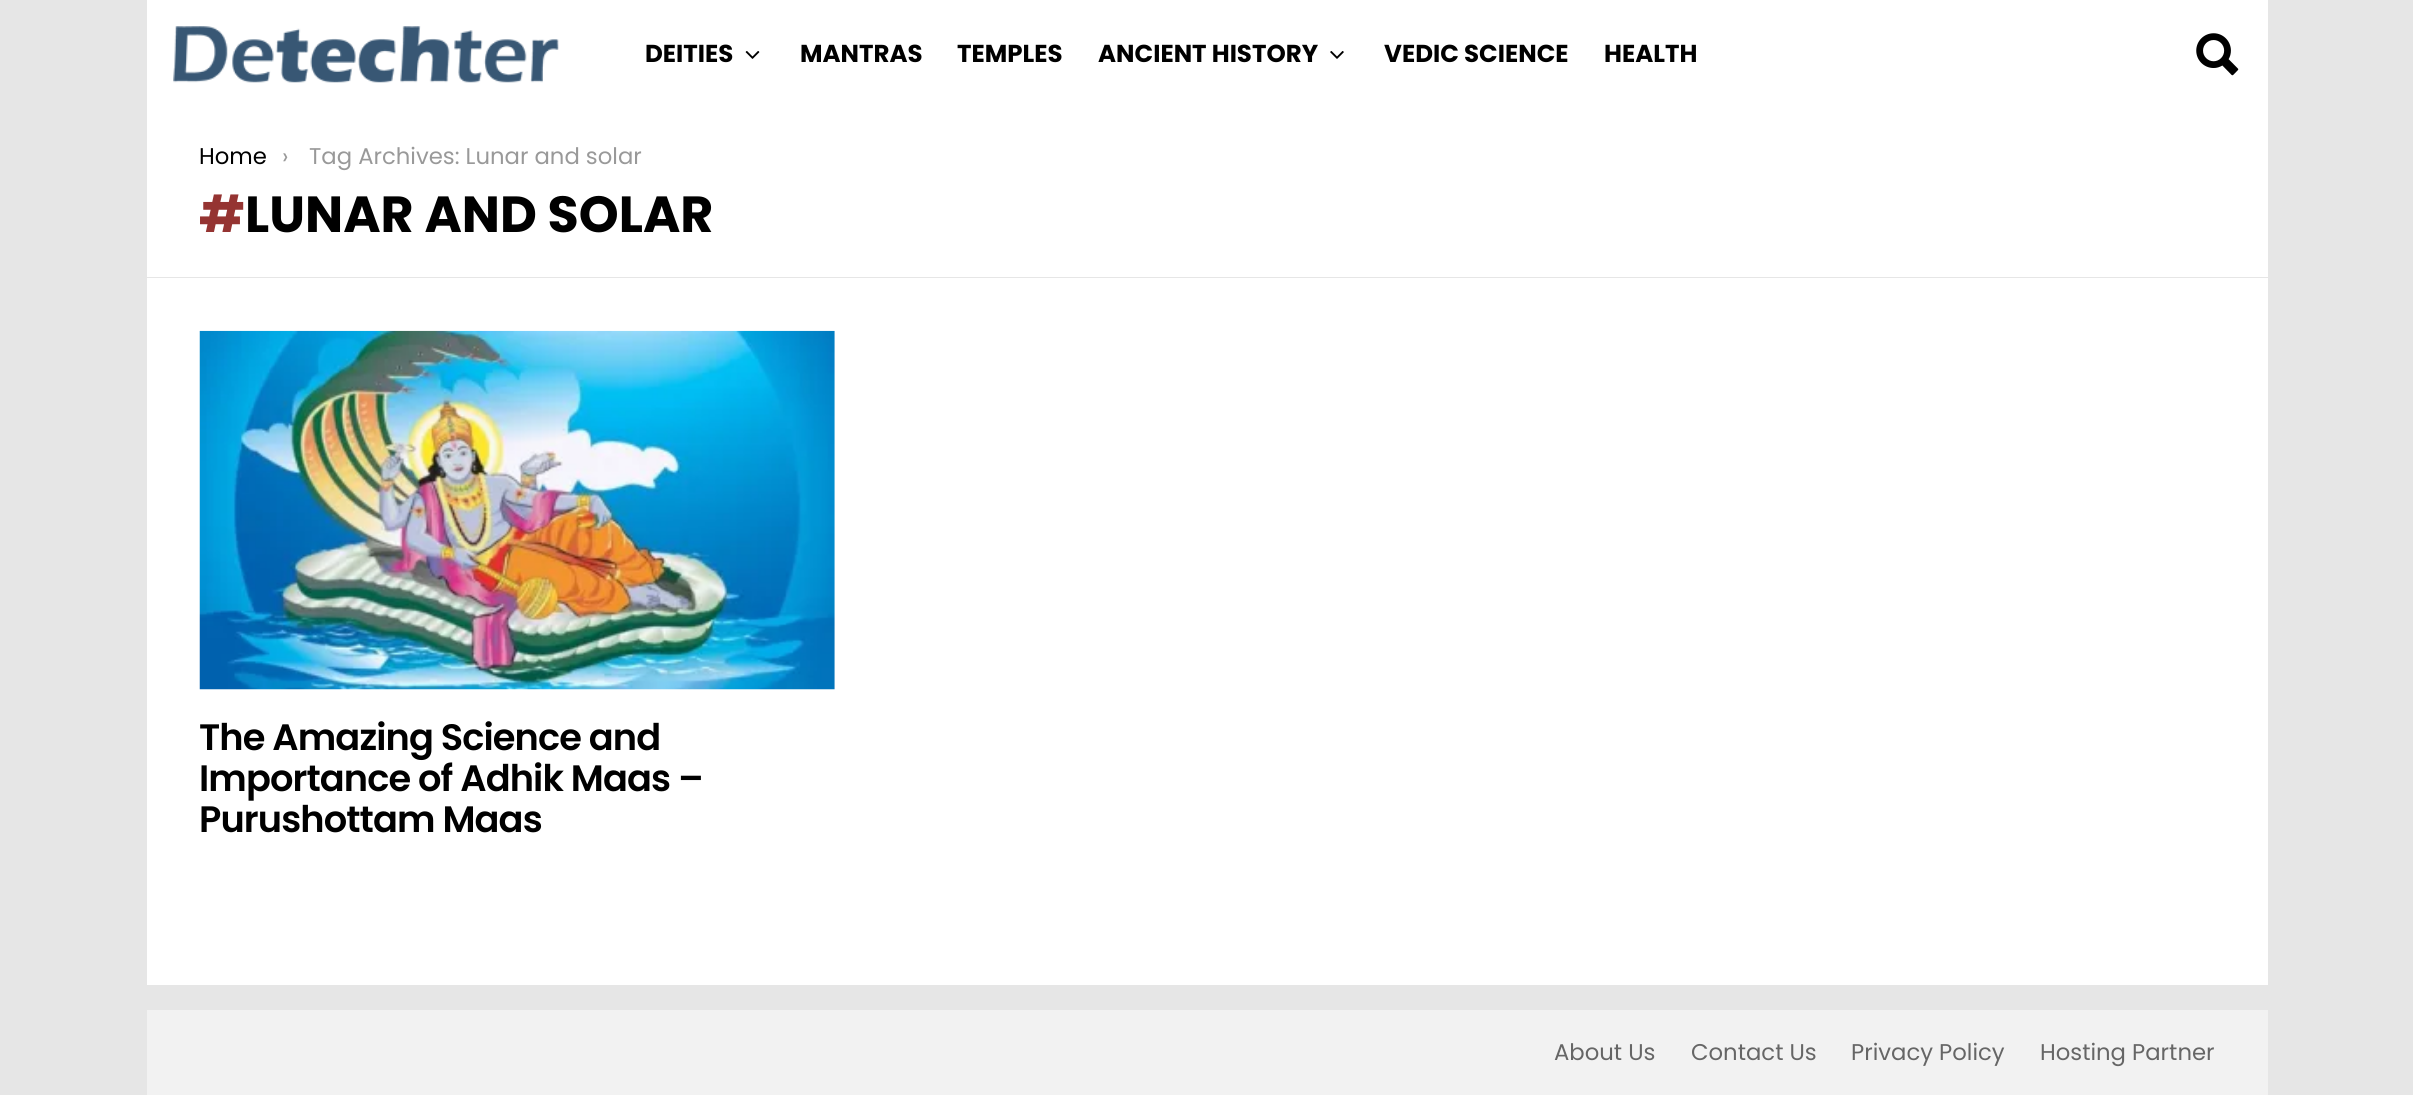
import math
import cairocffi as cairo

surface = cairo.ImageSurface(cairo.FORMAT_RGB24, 2413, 1095)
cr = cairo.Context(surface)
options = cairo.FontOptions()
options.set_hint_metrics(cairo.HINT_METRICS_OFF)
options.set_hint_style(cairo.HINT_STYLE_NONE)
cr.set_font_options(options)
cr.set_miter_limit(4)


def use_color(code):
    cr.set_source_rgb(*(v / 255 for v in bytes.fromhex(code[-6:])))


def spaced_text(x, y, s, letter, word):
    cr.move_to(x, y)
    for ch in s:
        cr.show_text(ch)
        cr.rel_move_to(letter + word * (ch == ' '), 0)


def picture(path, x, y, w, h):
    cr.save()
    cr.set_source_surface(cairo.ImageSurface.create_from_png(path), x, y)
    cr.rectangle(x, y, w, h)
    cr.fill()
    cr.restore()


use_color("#e6e6e6")
cr.paint()
use_color("#ffffff")
cr.rectangle(147, 0, 2121, 277)
cr.fill()
picture("img1.png", 173, 26, 386, 57)
cr.select_font_face("Poppins", cairo.FONT_SLANT_NORMAL, cairo.FONT_WEIGHT_BOLD)
cr.set_font_size(24.5)
use_color("#000000")
cr.move_to(645, 62)
cr.show_text("DEITIES")
picture("img2.png", 745, 51, 15, 8)
cr.move_to(800, 62)
cr.show_text("MANTRAS")
cr.move_to(957, 62)
cr.show_text("TEMPLES")
cr.move_to(1098, 62)
cr.show_text("ANCIENT HISTORY")
picture("img3.png", 1330, 51, 14, 8)
cr.move_to(1384, 62)
cr.show_text("VEDIC SCIENCE")
cr.move_to(1604, 62)
cr.show_text("HEALTH")
picture("img4.png", 2196, 33, 43, 43)
cr.select_font_face("Poppins")
cr.set_font_size(22.75)
cr.move_to(199, 164)
cr.show_text("Home")
use_color("#999999")
cr.move_to(282, 164)
cr.show_text("›")
cr.move_to(309, 164)
cr.show_text("Tag Archives: Lunar and solar")
cr.select_font_face("Poppins", cairo.FONT_SLANT_NORMAL, cairo.FONT_WEIGHT_BOLD)
cr.set_font_size(50.75)
use_color("#953432")
cr.move_to(199, 232)
cr.show_text("#")
use_color("#000000")
cr.move_to(245, 232)
cr.show_text("LUNAR AND SOLAR")
use_color("#ffffff")
cr.rectangle(147, 278, 2121, 707)
cr.fill()
picture("img5.png", 199, 330, 636, 360)
cr.select_font_face("Poppins SemiBold")
cr.set_font_size(36.75)
use_color("#000000")
spaced_text(199, 750, "The Amazing Science and", -0.9, 0)
spaced_text(199, 791, "Importance of Adhik Maas –", -0.9, 0)
spaced_text(199, 832, "Purushottam Maas", -0.9, 0)
use_color("#f2f2f2")
cr.rectangle(147, 1010, 2121, 85)
cr.fill()
cr.select_font_face("Poppins")
cr.set_font_size(22.75)
use_color("#666666")
cr.move_to(1554, 1060)
cr.show_text("About Us")
cr.move_to(1691, 1060)
cr.show_text("Contact Us")
cr.move_to(1851, 1060)
cr.show_text("Privacy Policy")
cr.move_to(2040, 1060)
cr.show_text("Hosting Partner")
surface.write_to_png("result.png")
